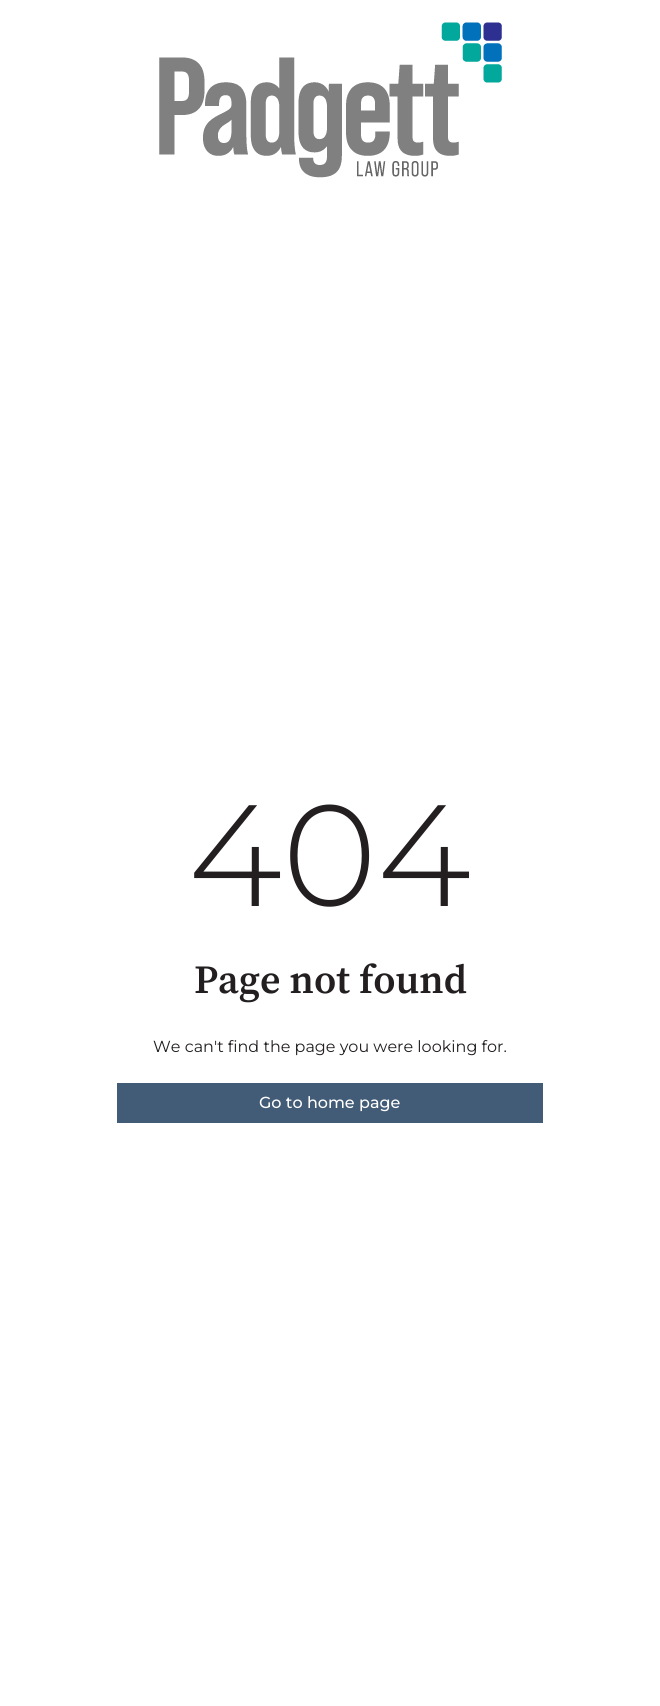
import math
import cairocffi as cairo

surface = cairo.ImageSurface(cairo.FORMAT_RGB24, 660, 1706)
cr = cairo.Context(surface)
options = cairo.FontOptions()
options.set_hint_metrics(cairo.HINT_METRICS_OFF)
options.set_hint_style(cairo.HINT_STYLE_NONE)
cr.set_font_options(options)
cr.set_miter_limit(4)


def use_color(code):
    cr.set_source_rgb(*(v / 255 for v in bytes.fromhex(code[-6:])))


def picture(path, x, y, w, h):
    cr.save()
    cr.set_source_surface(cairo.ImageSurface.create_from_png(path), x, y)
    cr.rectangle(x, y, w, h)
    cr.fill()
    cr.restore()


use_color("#ffffff")
cr.paint()
picture("img1.png", 159, 22, 343, 156)
cr.select_font_face("Montserrat Light")
cr.set_font_size(144)
use_color("#231f20")
cr.move_to(188, 906)
cr.show_text("404")
cr.select_font_face("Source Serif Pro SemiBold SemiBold")
cr.set_font_size(40)
cr.move_to(194, 993)
cr.show_text("Page not found")
cr.select_font_face("Montserrat")
cr.set_font_size(16)
cr.move_to(153, 1052)
cr.show_text("We can't find the page you were looking for.")
use_color("#425b76")
cr.rectangle(117, 1083, 426, 40)
cr.fill()
cr.select_font_face("Montserrat Medium")
use_color("#ffffff")
cr.move_to(259, 1108)
cr.show_text("Go to home page")
surface.write_to_png("result.png")
